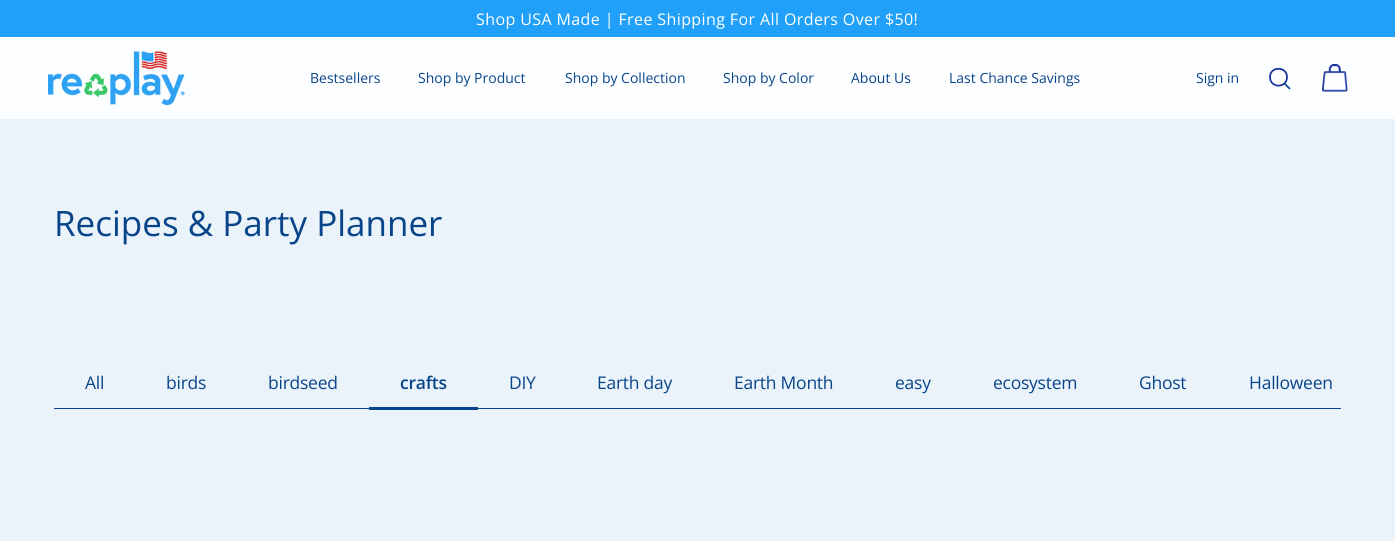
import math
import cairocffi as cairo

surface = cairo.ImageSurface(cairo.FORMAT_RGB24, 1395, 541)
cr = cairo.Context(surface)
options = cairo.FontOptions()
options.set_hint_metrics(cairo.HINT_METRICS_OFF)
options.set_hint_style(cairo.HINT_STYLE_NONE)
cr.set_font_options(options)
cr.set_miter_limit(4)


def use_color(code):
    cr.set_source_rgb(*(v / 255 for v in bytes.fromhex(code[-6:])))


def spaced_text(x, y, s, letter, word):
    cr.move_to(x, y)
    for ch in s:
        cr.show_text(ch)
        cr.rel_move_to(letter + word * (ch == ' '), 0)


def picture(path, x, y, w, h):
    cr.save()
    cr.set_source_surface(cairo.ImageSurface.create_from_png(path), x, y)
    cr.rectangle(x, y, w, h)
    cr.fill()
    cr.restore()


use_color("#ebf3fa")
cr.paint()
use_color("#21a0fa")
cr.rectangle(0, 0, 1395, 37)
cr.fill()
cr.select_font_face("Open Sans")
cr.set_font_size(16)
use_color("#ffffff")
spaced_text(476, 25, "Shop USA Made | Free Shipping For All Orders Over $50!", 0.4, 0)
use_color("#fdfeff")
cr.rectangle(0, 37, 1395, 82)
cr.fill()
picture("img1.png", 48, 51, 137, 54)
cr.set_font_size(14)
use_color("#084489")
cr.move_to(310, 83)
cr.show_text("Bestsellers")
cr.move_to(418, 83)
cr.show_text("Shop by Product")
cr.move_to(565, 83)
cr.show_text("Shop by Collection")
cr.move_to(723, 83)
cr.show_text("Shop by Color")
cr.move_to(851, 83)
cr.show_text("About Us")
cr.move_to(949, 83)
cr.show_text("Last Chance Savings")
cr.move_to(1196, 83)
cr.show_text("Sign in")
cr.new_path()
cr.move_to(1287, 77)
cr.curve_to(1287, 88.5, 1270, 88.5, 1270, 77)
cr.curve_to(1270, 66, 1287, 66, 1287, 77)
cr.close_path()
use_color("#0e2d9b")
cr.set_line_width(1.7)
cr.set_line_cap(cairo.LINE_CAP_ROUND)
cr.set_line_join(cairo.LINE_JOIN_ROUND)
cr.stroke()
cr.new_path()
cr.move_to(1284.5, 83.5)
cr.line_to(1289.5, 88.5)
use_color("#084489")
cr.set_line_join(cairo.LINE_JOIN_MITER)
cr.stroke()
picture("img2.png", 1322, 64, 26, 28)
cr.set_font_size(35)
cr.move_to(54, 236)
cr.show_text("Recipes & Party Planner")
cr.set_font_size(17.5)
spaced_text(85, 389, "All", -0.25, 0)
spaced_text(166, 389, "birds", -0.25, 0)
spaced_text(268, 389, "birdseed", -0.25, 0)
cr.select_font_face("Open Sans SemiBold")
spaced_text(400, 389, "crafts", -0.25, 0)
cr.rectangle(54, 408, 1287, 1)
cr.fill()
cr.rectangle(369, 407, 109, 3)
cr.fill()
cr.select_font_face("Open Sans")
spaced_text(509, 389, "DIY", -0.25, 0)
spaced_text(597, 389, "Earth day", -0.25, 0)
spaced_text(734, 389, "Earth Month", -0.25, 0)
spaced_text(895, 389, "easy", -0.25, 0)
spaced_text(993, 389, "ecosystem", -0.25, 0)
spaced_text(1139, 389, "Ghost", -0.25, 0)
spaced_text(1249, 389, "Halloween", -0.25, 0)
surface.write_to_png("result.png")
